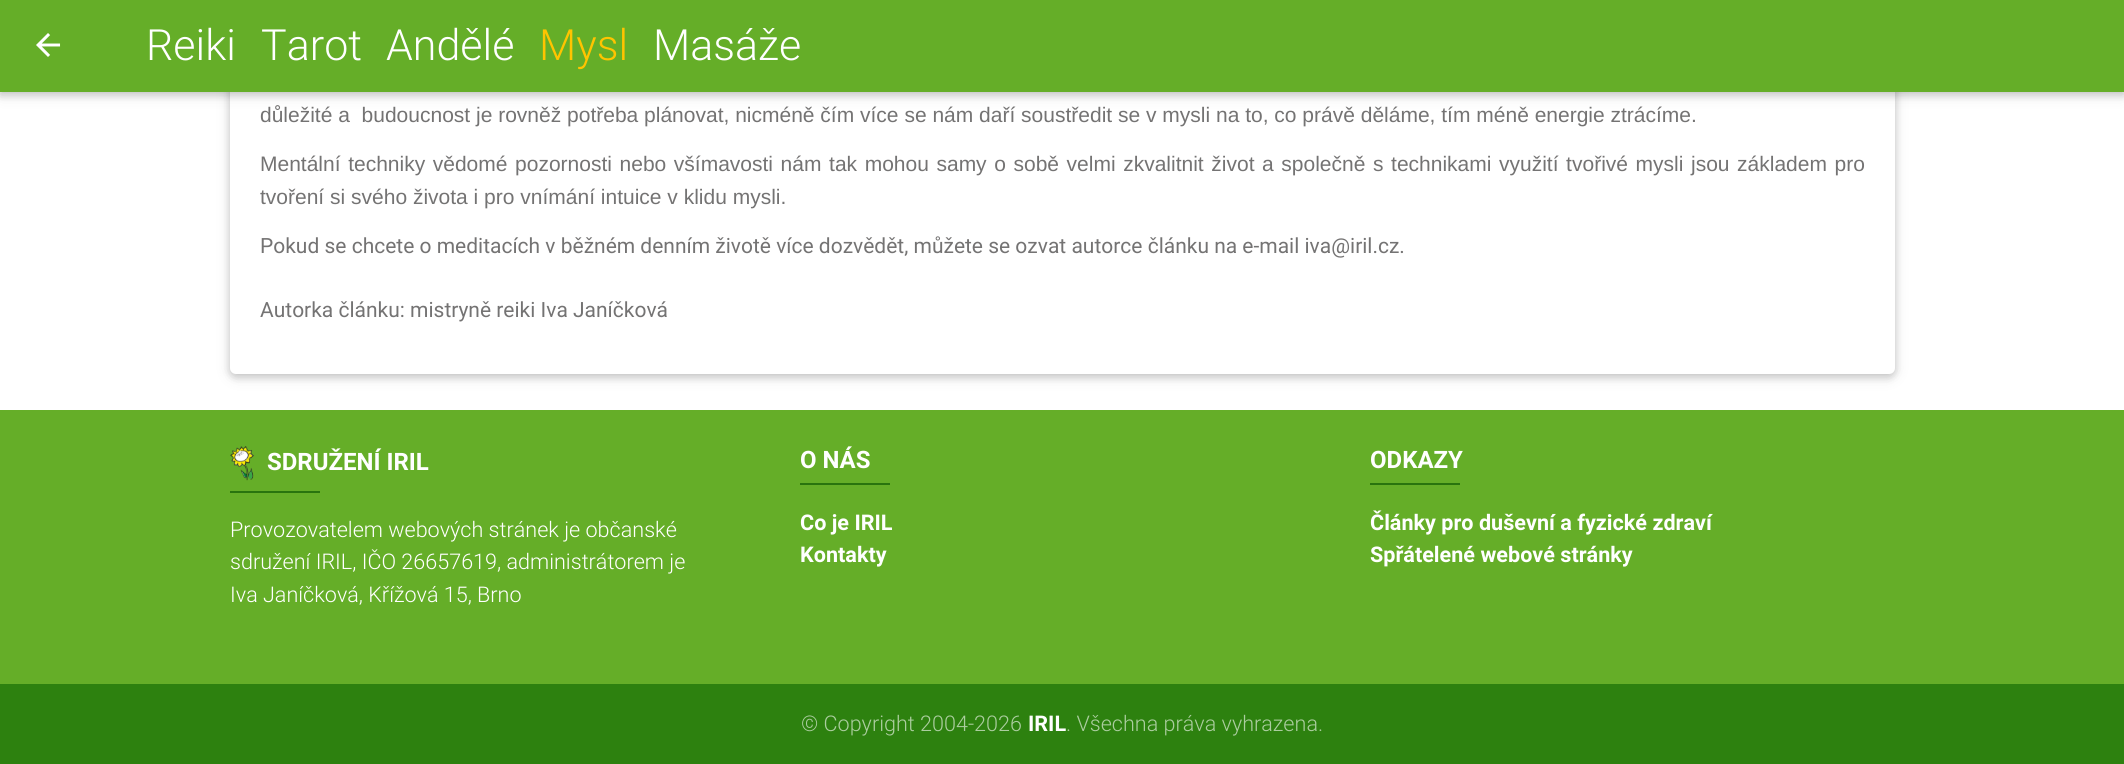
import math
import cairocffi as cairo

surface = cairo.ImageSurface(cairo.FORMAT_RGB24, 2124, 764)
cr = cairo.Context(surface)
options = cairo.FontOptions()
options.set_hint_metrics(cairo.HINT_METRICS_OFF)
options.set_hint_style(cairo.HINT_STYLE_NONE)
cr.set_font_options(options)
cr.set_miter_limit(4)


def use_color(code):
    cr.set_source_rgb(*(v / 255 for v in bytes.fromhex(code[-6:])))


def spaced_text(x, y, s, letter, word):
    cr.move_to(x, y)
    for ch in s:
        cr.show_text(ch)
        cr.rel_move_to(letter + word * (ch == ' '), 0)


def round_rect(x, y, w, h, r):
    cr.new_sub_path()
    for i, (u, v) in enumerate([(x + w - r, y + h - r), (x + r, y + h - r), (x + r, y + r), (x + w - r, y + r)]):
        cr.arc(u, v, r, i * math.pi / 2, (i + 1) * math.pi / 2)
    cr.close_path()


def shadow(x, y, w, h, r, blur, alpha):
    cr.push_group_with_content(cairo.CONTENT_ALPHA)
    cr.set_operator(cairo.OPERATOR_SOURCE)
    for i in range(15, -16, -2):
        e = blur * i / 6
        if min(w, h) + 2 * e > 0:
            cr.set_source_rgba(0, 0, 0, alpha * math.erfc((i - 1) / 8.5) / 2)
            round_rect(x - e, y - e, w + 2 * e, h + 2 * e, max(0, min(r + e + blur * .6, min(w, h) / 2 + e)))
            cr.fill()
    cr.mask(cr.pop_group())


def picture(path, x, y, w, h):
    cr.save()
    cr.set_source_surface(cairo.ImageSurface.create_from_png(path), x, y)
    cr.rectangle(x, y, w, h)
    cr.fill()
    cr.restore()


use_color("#ffffff")
cr.paint()
use_color("#000000")
shadow(230, -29, 1665, 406, 6, 7.5, 0.12)
shadow(230, -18, 1665, 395, 6, 4, 0.16)
use_color("#ffffff")
round_rect(230, -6, 1665, 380, 6)
cr.fill()
use_color("#000000")
shadow(0, 3, 2124, 92, 0, 7.5, 0.12)
shadow(0, 3, 2124, 92, 0, 4, 0.16)
use_color("#65ae28")
cr.rectangle(0, 0, 2124, 92)
cr.fill()
picture("img1.png", 36, 33, 25, 24)
cr.select_font_face("Roboto Light")
cr.set_font_size(43)
use_color("#ffffff")
cr.move_to(146, 60)
cr.show_text("Reiki")
cr.move_to(261, 60)
cr.show_text("Tarot")
cr.move_to(386, 60)
cr.show_text("Andělé")
use_color("#ffc400")
cr.move_to(539, 60)
cr.show_text("Mysl")
use_color("#ffffff")
cr.move_to(653, 60)
cr.show_text("Masáže")
cr.select_font_face("Liberation Sans")
cr.set_font_size(21)
use_color("#747373")
cr.move_to(260, 122)
cr.show_text("důležité a  budoucnost je rovněž potřeba plánovat, nicméně čím více se nám daří soustředit se v mysli na to, co právě děláme, tím méně energie ztrácíme.")
spaced_text(260, 171, "Mentální techniky vědomé pozornosti nebo všímavosti nám tak mohou samy o sobě velmi zkvalitnit život a společně s technikami využití tvořivé mysli jsou základem pro", 0, 1.75)
cr.move_to(260, 204)
cr.show_text("tvoření si svého života i pro vnímání intuice v klidu mysli.")
cr.select_font_face("Roboto")
cr.move_to(260, 253)
cr.show_text("Pokud se chcete o meditacích v běžném denním životě více dozvědět, můžete se ozvat autorce článku na e-mail iva@iril.cz.")
cr.move_to(260, 317)
cr.show_text("Autorka článku: mistryně reiki Iva Janíčková")
use_color("#65ae28")
cr.rectangle(0, 410, 2124, 274)
cr.fill()
picture("img2.png", 230, 446, 25, 35)
cr.select_font_face("Roboto", cairo.FONT_SLANT_NORMAL, cairo.FONT_WEIGHT_BOLD)
cr.set_font_size(24)
use_color("#ffffff")
cr.move_to(267, 470)
cr.show_text("SDRUŽENÍ IRIL")
use_color("#29740e")
cr.rectangle(230, 491, 90, 2)
cr.fill()
cr.select_font_face("Roboto Light")
cr.set_font_size(21.6)
use_color("#ffffff")
cr.move_to(230, 537)
cr.show_text("Provozovatelem webových stránek je občanské")
cr.move_to(230, 569)
cr.show_text("sdružení IRIL, IČO 26657619, administrátorem je")
cr.move_to(230, 602)
cr.show_text("Iva Janíčková, Křížová 15, Brno")
cr.select_font_face("Roboto", cairo.FONT_SLANT_NORMAL, cairo.FONT_WEIGHT_BOLD)
cr.set_font_size(24)
cr.move_to(800, 468)
cr.show_text("O NÁS")
use_color("#29740e")
cr.rectangle(800, 483, 90, 2)
cr.fill()
cr.set_font_size(21.6)
use_color("#ffffff")
cr.move_to(800, 530)
cr.show_text("Co je IRIL")
cr.move_to(800, 562)
cr.show_text("Kontakty")
cr.set_font_size(24)
cr.move_to(1370, 468)
cr.show_text("ODKAZY")
use_color("#29740e")
cr.rectangle(1370, 483, 90, 2)
cr.fill()
cr.set_font_size(21.6)
use_color("#ffffff")
cr.move_to(1370, 530)
cr.show_text("Články pro duševní a fyzické zdraví")
cr.move_to(1370, 562)
cr.show_text("Spřátelené webové stránky")
use_color("#2d810f")
cr.rectangle(0, 684, 2124, 80)
cr.fill()
cr.select_font_face("Roboto Light")
use_color("#abcd9f")
cr.move_to(801, 731)
cr.show_text("© Copyright 2004-2026")
cr.select_font_face("Roboto", cairo.FONT_SLANT_NORMAL, cairo.FONT_WEIGHT_BOLD)
use_color("#ffffff")
cr.move_to(1028, 731)
cr.show_text("IRIL")
cr.select_font_face("Roboto Light")
use_color("#abcd9f")
cr.move_to(1066, 731)
cr.show_text(". Všechna práva vyhrazena.")
surface.write_to_png("result.png")
